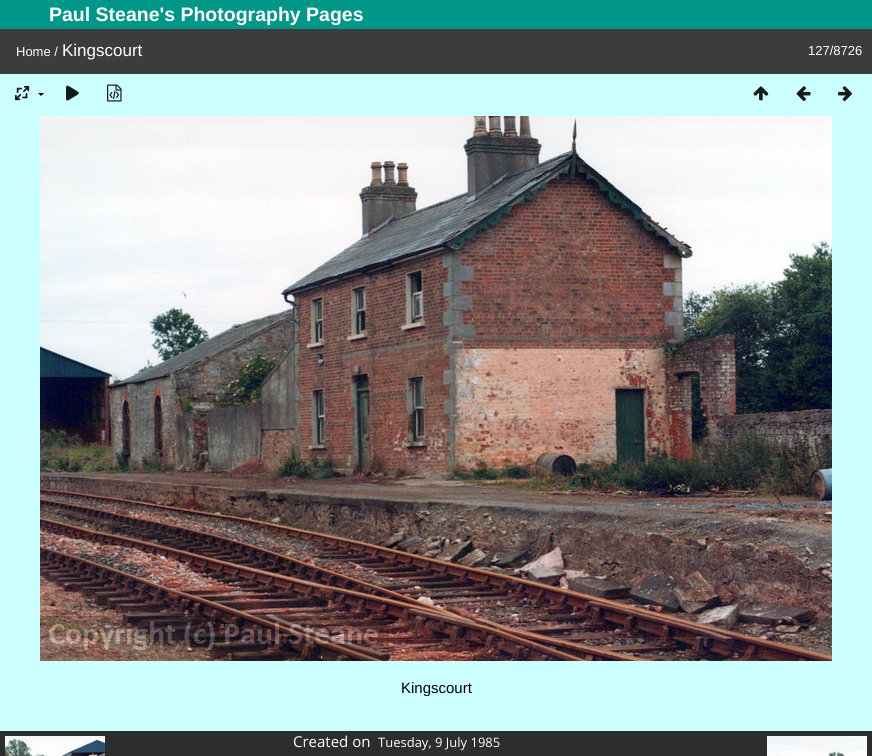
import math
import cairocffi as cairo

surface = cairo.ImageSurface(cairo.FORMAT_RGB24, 872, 756)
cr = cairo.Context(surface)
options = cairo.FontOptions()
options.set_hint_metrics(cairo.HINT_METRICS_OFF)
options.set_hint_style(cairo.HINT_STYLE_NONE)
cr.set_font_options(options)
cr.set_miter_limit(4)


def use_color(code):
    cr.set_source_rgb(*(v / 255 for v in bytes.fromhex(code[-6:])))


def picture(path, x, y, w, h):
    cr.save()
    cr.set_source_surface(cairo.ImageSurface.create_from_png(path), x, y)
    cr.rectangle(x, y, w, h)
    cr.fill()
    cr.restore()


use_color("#ccffff")
cr.paint()
use_color("#009688")
cr.rectangle(0, 0, 872, 29)
cr.fill()
cr.select_font_face("Liberation Sans", cairo.FONT_SLANT_NORMAL, cairo.FONT_WEIGHT_BOLD)
cr.set_font_size(19.5)
use_color("#ffffff")
cr.move_to(49, 21)
cr.show_text("Paul Steane's Photography Pages")
use_color("#3c3c3c")
cr.rectangle(0, 29, 872, 45)
cr.fill()
cr.select_font_face("Liberation Sans")
cr.set_font_size(13)
use_color("#ffffff")
cr.move_to(16, 56)
cr.show_text("Home /")
cr.set_font_size(17)
cr.move_to(62, 56)
cr.show_text("Kingscourt")
cr.set_font_size(13)
cr.move_to(808, 55)
cr.show_text("127/8726")
picture("img1.png", 15, 85, 15, 16)
use_color("#000000")
cr.new_path()
cr.move_to(38, 93)
cr.line_to(44, 93)
cr.line_to(41, 96)
cr.close_path()
cr.fill()
picture("img2.png", 66, 85, 13, 16)
picture("img3.png", 107, 84, 15, 18)
picture("img4.png", 753, 86, 16, 15)
picture("img5.png", 796, 86, 15, 15)
picture("img6.png", 838, 86, 14, 15)
picture("img7.png", 40, 116, 792, 545)
cr.set_font_size(15)
cr.move_to(401, 693)
cr.show_text("Kingscourt")
use_color("#2d2d2d")
cr.rectangle(0, 731, 872, 25)
cr.fill()
cr.select_font_face("Open Sans")
use_color("#ffffff")
cr.move_to(293, 747)
cr.show_text("Created on")
cr.set_font_size(13)
cr.move_to(378, 747)
cr.show_text("Tuesday, 9 July 1985")
picture("img8.png", 5, 736, 100, 20)
picture("img9.png", 767, 736, 100, 20)
surface.write_to_png("result.png")
